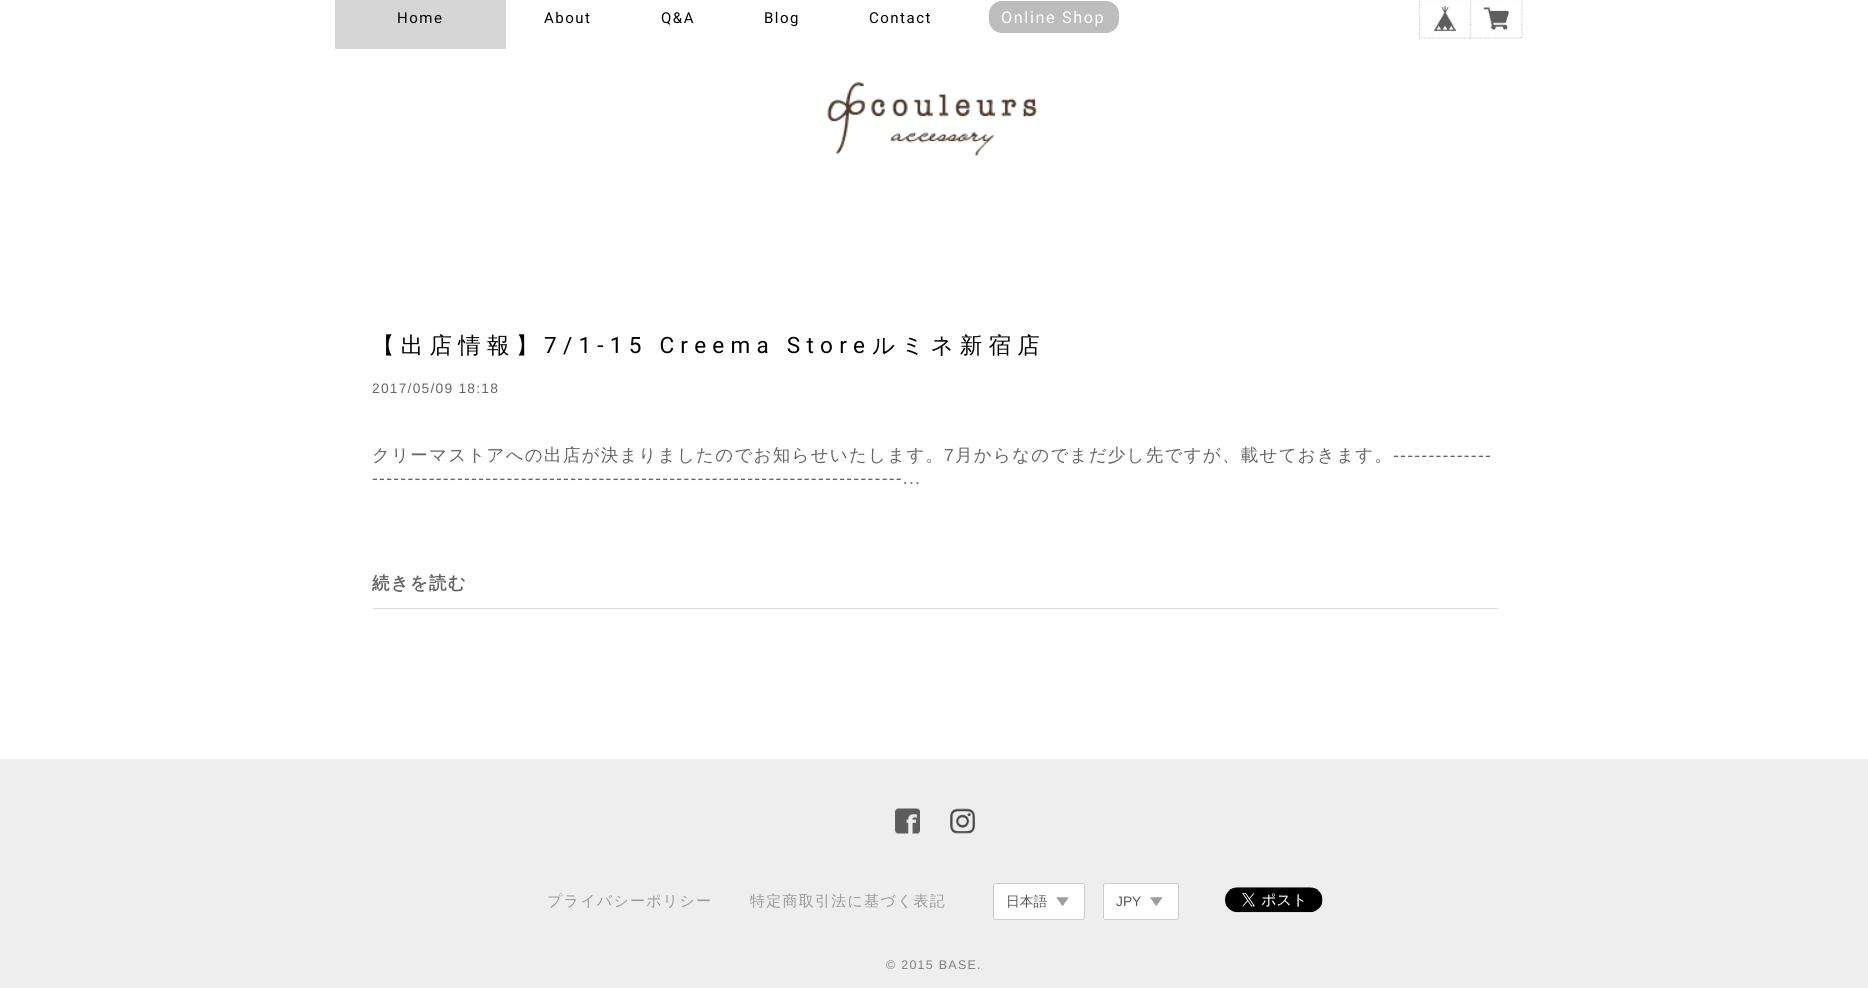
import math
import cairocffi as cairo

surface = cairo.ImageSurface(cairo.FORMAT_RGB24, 1868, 988)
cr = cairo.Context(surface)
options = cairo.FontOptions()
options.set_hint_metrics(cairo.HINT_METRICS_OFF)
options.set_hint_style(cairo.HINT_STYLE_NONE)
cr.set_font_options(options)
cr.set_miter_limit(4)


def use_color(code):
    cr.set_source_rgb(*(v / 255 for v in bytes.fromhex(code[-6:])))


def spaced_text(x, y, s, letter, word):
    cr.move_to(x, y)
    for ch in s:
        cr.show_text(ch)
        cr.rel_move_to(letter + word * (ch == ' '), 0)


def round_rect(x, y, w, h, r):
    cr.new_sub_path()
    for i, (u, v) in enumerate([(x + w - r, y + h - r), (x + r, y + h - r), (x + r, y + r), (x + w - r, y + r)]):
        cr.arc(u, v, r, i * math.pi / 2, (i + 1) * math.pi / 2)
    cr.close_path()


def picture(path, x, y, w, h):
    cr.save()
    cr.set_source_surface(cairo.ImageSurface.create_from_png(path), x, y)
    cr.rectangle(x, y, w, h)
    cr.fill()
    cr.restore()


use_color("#ffffff")
cr.paint()
use_color("#d6d6d6")
cr.rectangle(335, 0, 171, 49)
cr.fill()
cr.select_font_face("Roboto")
cr.set_font_size(15)
use_color("#000000")
spaced_text(397, 23, "Home", 1.5, 0)
spaced_text(544, 23, "About", 1.5, 0)
spaced_text(661, 23, "Q&A", 1.5, 0)
spaced_text(764, 23, "Blog", 1.5, 0)
spaced_text(869, 23, "Contact", 1.5, 0)
use_color("#bdbdbd")
round_rect(989, 1, 130, 32, 13)
cr.fill()
cr.set_font_size(16.25)
use_color("#ffffff")
spaced_text(1001, 23, "Online Shop", 1.6, 0)
cr.new_path()
cr.move_to(1419, -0.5)
cr.line_to(1470, -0.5)
cr.move_to(1419, 38)
cr.line_to(1470, 38)
cr.move_to(1419.5, -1)
cr.line_to(1419.5, 39)
use_color("#cccccc")
cr.set_line_width(1.2)
cr.set_dash([1.25, 1.25])
cr.stroke()
picture("img1.png", 1433, 6, 24, 25)
cr.new_path()
cr.move_to(1470, -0.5)
cr.line_to(1522.5, -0.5)
cr.move_to(1522, -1)
cr.line_to(1522, 39)
cr.move_to(1470, 38)
cr.line_to(1522.5, 38)
cr.move_to(1470.5, -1)
cr.line_to(1470.5, 39)
cr.stroke()
picture("img2.png", 1483, 7, 26, 24)
picture("img3.png", 827, 82, 210, 75)
use_color("#dddddd")
cr.rectangle(373, 608, 1125, 1)
cr.fill()
cr.select_font_face("WenQuanYi Zen Hei Medium")
cr.set_font_size(22.5)
use_color("#000000")
spaced_text(372, 353, "【出店情報】", 6.25, 0)
cr.select_font_face("Roboto")
spaced_text(544, 353, "7/1-15 Creema Store", 6.25, 0)
cr.select_font_face("WenQuanYi Zen Hei Medium")
spaced_text(872, 353, "ルミネ新宿店", 6.25, 0)
cr.select_font_face("Liberation Sans")
cr.set_font_size(13.75)
use_color("#666666")
spaced_text(372, 393, "2017/05/09 18:18", 1.25, 0)
cr.select_font_face("WenQuanYi Zen Hei Medium")
cr.set_font_size(17.5)
spaced_text(372, 461, "クリーマストアへの出店が決まりましたのでお知らせいたします。", 1.25, 0)
cr.select_font_face("Liberation Sans")
spaced_text(944, 461, "7", 1.25, 0)
cr.select_font_face("WenQuanYi Zen Hei Medium")
spaced_text(955, 461, "月からなのでまだ少し先ですが、載せておきます。", 1.25, 0)
cr.select_font_face("Liberation Sans")
spaced_text(1393, 461, "--------------", 1.25, 0)
spaced_text(372, 484, "---------------------------------------------------------------------------...", 1.25, 0)
cr.select_font_face("WenQuanYi Zen Hei", cairo.FONT_SLANT_NORMAL, cairo.FONT_WEIGHT_BOLD)
spaced_text(372, 589, "続きを読む", 1.25, 0)
use_color("#eeeeee")
cr.rectangle(0, 759, 1868, 229)
cr.fill()
picture("img4.png", 895, 808, 25, 26)
picture("img5.png", 950, 808, 25, 26)
cr.select_font_face("WenQuanYi Zen Hei Medium")
cr.set_font_size(15)
use_color("#999999")
spaced_text(547, 906, "プライバシーポリシー", 1.25, 0)
spaced_text(750, 906, "特定商取引法に基づく表記", 1.25, 0)
use_color("#ffffff")
round_rect(993.5, 883.5, 91, 36, 2)
cr.fill_preserve()
use_color("#cccccc")
cr.set_line_width(1)
cr.set_dash([])
cr.stroke()
cr.set_font_size(13.75)
use_color("#555555")
cr.move_to(1006, 906)
cr.show_text("日本語")
picture("img6.png", 1056, 897, 13, 9)
use_color("#ffffff")
round_rect(1103.5, 883.5, 75, 36, 2)
cr.fill_preserve()
use_color("#cccccc")
cr.stroke()
cr.select_font_face("Liberation Sans")
use_color("#555555")
cr.move_to(1116, 906)
cr.show_text("JPY")
picture("img7.png", 1150, 897, 13, 9)
picture("img8.png", 1225, 887, 98, 26)
cr.set_font_size(12.5)
use_color("#808080")
spaced_text(886, 969, "© 2015 BASE.", 1.25, 0)
surface.write_to_png("result.png")
